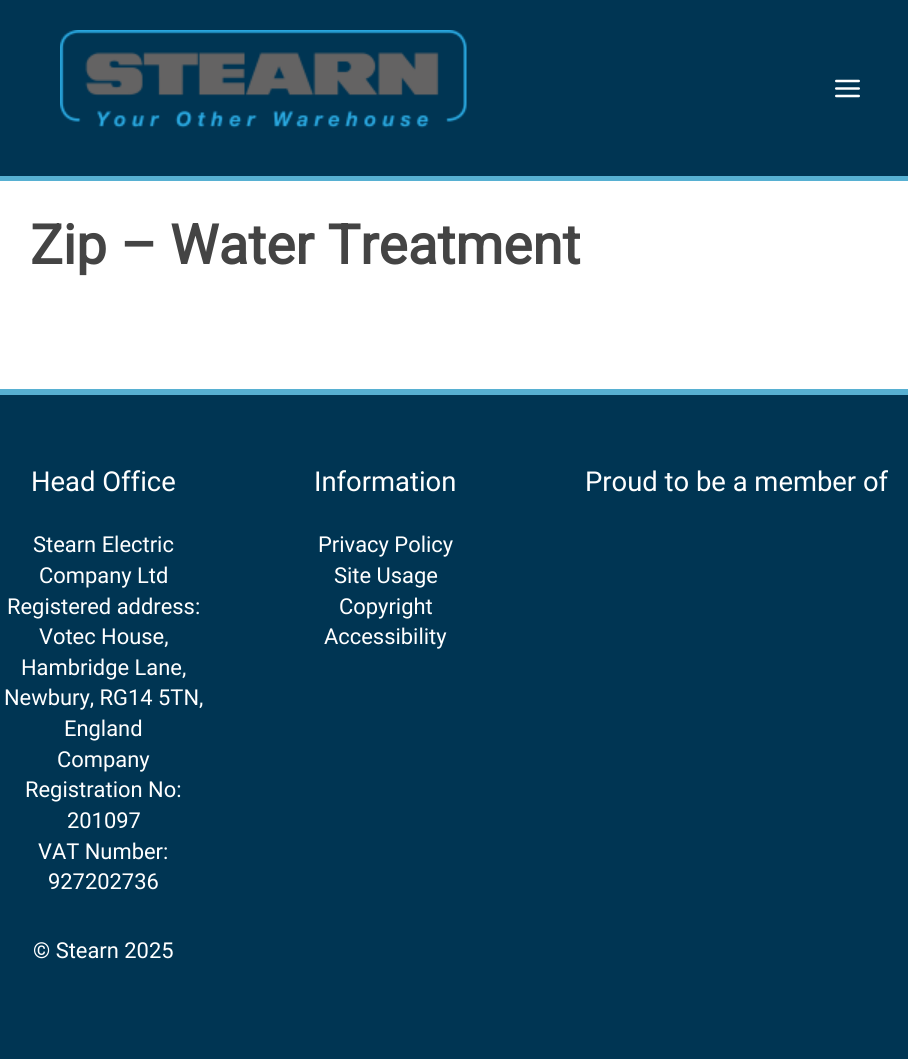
import math
import cairocffi as cairo

surface = cairo.ImageSurface(cairo.FORMAT_RGB24, 908, 1059)
cr = cairo.Context(surface)
options = cairo.FontOptions()
options.set_hint_metrics(cairo.HINT_METRICS_OFF)
options.set_hint_style(cairo.HINT_STYLE_NONE)
cr.set_font_options(options)
cr.set_miter_limit(4)


def use_color(code):
    cr.set_source_rgb(*(v / 255 for v in bytes.fromhex(code[-6:])))


def picture(path, x, y, w, h):
    cr.save()
    cr.set_source_surface(cairo.ImageSurface.create_from_png(path), x, y)
    cr.rectangle(x, y, w, h)
    cr.fill()
    cr.restore()


use_color("#ffffff")
cr.paint()
use_color("#003553")
cr.rectangle(0, 0, 908, 176)
cr.fill()
use_color("#57b0d2")
cr.rectangle(0, 176, 908, 5)
cr.fill()
picture("img1.png", 60, 30, 407, 98)
picture("img2.png", 835, 79, 25, 19)
cr.select_font_face("Roboto", cairo.FONT_SLANT_NORMAL, cairo.FONT_WEIGHT_BOLD)
cr.set_font_size(54.75)
use_color("#444444")
cr.move_to(30, 264)
cr.show_text("Zip – Water Treatment")
use_color("#003553")
cr.rectangle(0, 395, 908, 664)
cr.fill()
use_color("#57b0d2")
cr.rectangle(0, 389, 908, 6)
cr.fill()
cr.select_font_face("Roboto")
cr.set_font_size(27.4)
use_color("#ffffff")
cr.move_to(31, 491)
cr.show_text("Head Office")
cr.set_font_size(21.9)
cr.move_to(33, 552)
cr.show_text("Stearn Electric")
cr.move_to(39, 583)
cr.show_text("Company Ltd")
cr.move_to(7, 614)
cr.show_text("Registered address:")
cr.move_to(39, 644)
cr.show_text("Votec House,")
cr.move_to(21, 675)
cr.show_text("Hambridge Lane,")
cr.move_to(4, 705)
cr.show_text("Newbury, RG14 5TN,")
cr.move_to(64, 736)
cr.show_text("England")
cr.move_to(57, 767)
cr.show_text("Company")
cr.move_to(25, 797)
cr.show_text("Registration No:")
cr.move_to(67, 828)
cr.show_text("201097")
cr.move_to(38, 859)
cr.show_text("VAT Number:")
cr.move_to(48, 889)
cr.show_text("927202736")
cr.move_to(33, 958)
cr.show_text("© Stearn 2025")
cr.set_font_size(27.4)
cr.move_to(314, 491)
cr.show_text("Information")
cr.set_font_size(21.9)
cr.move_to(318, 552)
cr.show_text("Privacy Policy")
cr.move_to(334, 583)
cr.show_text("Site Usage")
cr.move_to(339, 614)
cr.show_text("Copyright")
cr.move_to(324, 644)
cr.show_text("Accessibility")
cr.set_font_size(27.4)
cr.move_to(585, 491)
cr.show_text("Proud to be a member of")
surface.write_to_png("result.png")
